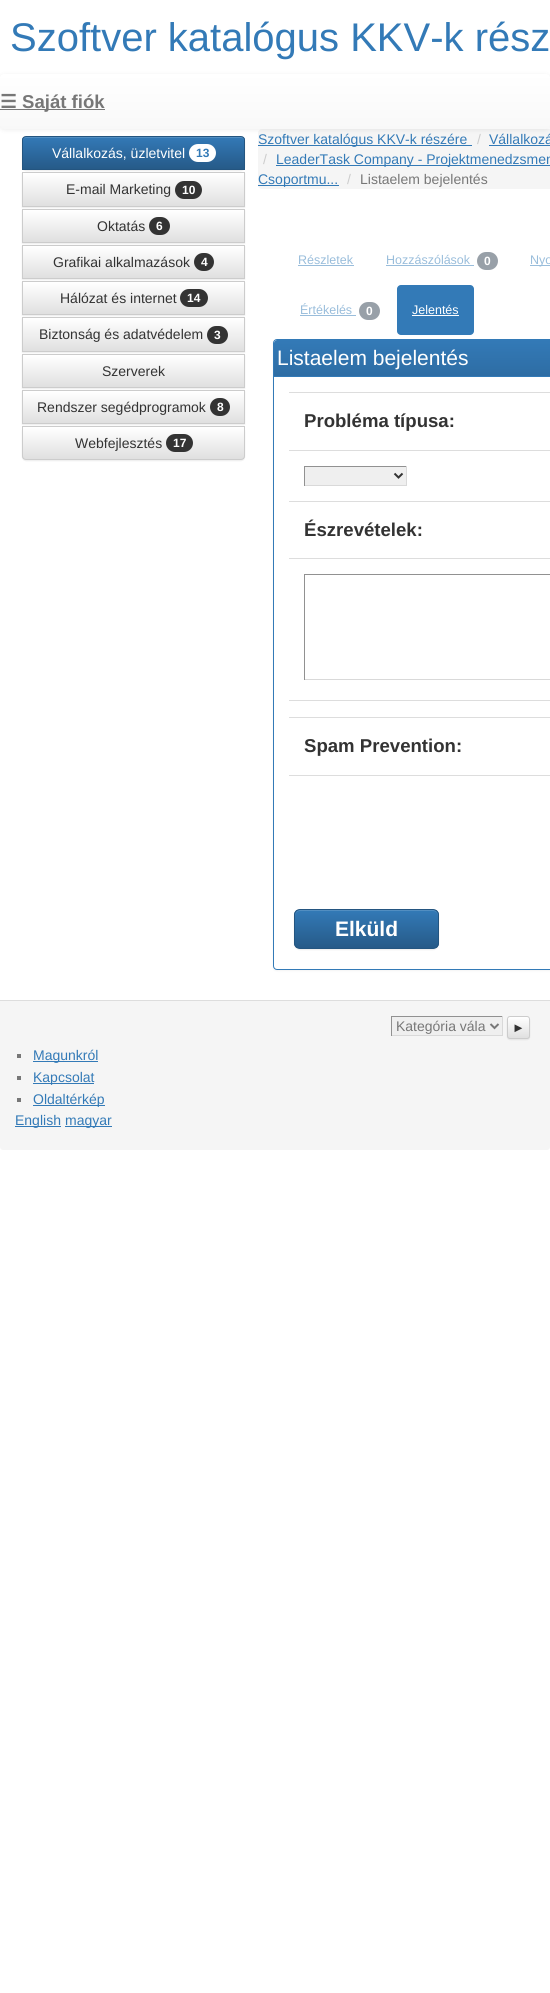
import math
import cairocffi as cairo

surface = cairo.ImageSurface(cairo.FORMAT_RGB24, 550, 1993)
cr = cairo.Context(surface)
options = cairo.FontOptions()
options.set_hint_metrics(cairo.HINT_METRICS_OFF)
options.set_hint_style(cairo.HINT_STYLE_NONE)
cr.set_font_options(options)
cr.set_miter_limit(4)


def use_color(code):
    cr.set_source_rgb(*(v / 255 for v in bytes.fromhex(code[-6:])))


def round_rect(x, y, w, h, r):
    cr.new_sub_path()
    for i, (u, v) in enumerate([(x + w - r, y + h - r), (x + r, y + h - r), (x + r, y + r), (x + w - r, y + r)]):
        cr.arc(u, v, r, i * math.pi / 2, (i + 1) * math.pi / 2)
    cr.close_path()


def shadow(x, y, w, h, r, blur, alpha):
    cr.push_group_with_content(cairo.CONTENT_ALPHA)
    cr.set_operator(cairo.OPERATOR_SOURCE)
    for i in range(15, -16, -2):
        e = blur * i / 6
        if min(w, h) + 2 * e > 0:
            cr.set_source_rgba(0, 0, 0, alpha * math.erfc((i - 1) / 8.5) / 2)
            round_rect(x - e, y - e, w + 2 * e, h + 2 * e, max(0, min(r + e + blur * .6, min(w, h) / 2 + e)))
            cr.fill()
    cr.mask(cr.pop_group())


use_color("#ffffff")
cr.paint()
cr.select_font_face("Liberation Sans")
cr.set_font_size(40)
use_color("#337ab7")
cr.move_to(10, 51)
cr.show_text("Szoftver katalógus KKV-k rész")
use_color("#f5f5f5")
round_rect(258, 129, 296, 60, 4)
cr.fill()
use_color("#000000")
shadow(0, 75, 550, 55, 4, 2.5, 0.07)
gradient = cairo.LinearGradient(275, 74, 275, 129)
gradient.add_color_stop_rgba(0, 1, 1, 1, 1)
gradient.add_color_stop_rgba(1, 0.973, 0.973, 0.973, 1)
cr.set_source(gradient)
round_rect(0, 74, 550, 55, 4)
cr.fill()
cr.select_font_face("DejaVu Sans", cairo.FONT_SLANT_NORMAL, cairo.FONT_WEIGHT_BOLD)
cr.set_font_size(18.6)
use_color("#777777")
cr.move_to(0, 108)
cr.show_text("☰")
cr.rectangle(0, 109, 105, 1)
cr.fill()
cr.select_font_face("Liberation Sans", cairo.FONT_SLANT_NORMAL, cairo.FONT_WEIGHT_BOLD)
cr.move_to(22, 108)
cr.show_text("Saját fiók")
use_color("#000000")
shadow(22, 137, 223, 34, 4, 0.5, 0.07)
cr.save()
cr.new_path()
cr.move_to(26, 136)
cr.line_to(241, 136)
cr.curve_to(243, 136, 245, 138, 245, 140)
cr.line_to(245, 170)
cr.line_to(22, 170)
cr.line_to(22, 140)
cr.curve_to(22, 138, 24, 136, 26, 136)
cr.close_path()
cr.clip()
gradient = cairo.LinearGradient(134, 137, 134, 169)
gradient.add_color_stop_rgba(0, 0.2, 0.478, 0.718, 1)
gradient.add_color_stop_rgba(1, 0.149, 0.353, 0.533, 1)
cr.set_source(gradient)
cr.rectangle(22, 137, 223, 32)
cr.fill()
cr.restore()
use_color("#528ec1")
cr.new_path()
cr.move_to(26, 138)
cr.line_to(241, 138)
cr.curve_to(243, 138, 244, 139, 244, 141)
cr.line_to(244, 140)
cr.curve_to(244, 138, 243, 137, 241, 137)
cr.line_to(26, 137)
cr.curve_to(24, 137, 23, 138, 23, 140)
cr.line_to(23, 141)
cr.curve_to(23, 139, 24, 138, 26, 138)
cr.close_path()
cr.fill()
cr.new_path()
cr.move_to(26, 136.5)
cr.line_to(241, 136.5)
cr.curve_to(243, 136.5, 244.5, 138, 244.5, 140)
cr.line_to(244.5, 169.5)
cr.line_to(22.5, 169.5)
cr.line_to(22.5, 140)
cr.curve_to(22.5, 138, 24, 136.5, 26, 136.5)
cr.close_path()
use_color("#245580")
cr.set_line_width(1)
cr.stroke()
cr.select_font_face("Liberation Sans")
cr.set_font_size(14)
use_color("#ffffff")
cr.move_to(52, 158)
cr.show_text("Vállalkozás, üzletvitel")
round_rect(189, 144, 27, 18, 9)
cr.fill()
cr.select_font_face("Liberation Sans", cairo.FONT_SLANT_NORMAL, cairo.FONT_WEIGHT_BOLD)
cr.set_font_size(12)
use_color("#337ab7")
cr.move_to(196, 157)
cr.show_text("13")
use_color("#000000")
shadow(22, 173, 223, 35, 0, 0.5, 0.07)
gradient = cairo.LinearGradient(134, 173, 134, 206)
gradient.add_color_stop_rgba(0, 1, 1, 1, 1)
gradient.add_color_stop_rgba(1, 0.878, 0.878, 0.878, 1)
cr.set_source(gradient)
cr.rectangle(23, 173, 221, 33)
cr.fill()
cr.rectangle(22.5, 172.5, 222, 34)
use_color("#cccccc")
cr.stroke()
cr.select_font_face("Liberation Sans")
cr.set_font_size(14)
use_color("#333333")
cr.move_to(66, 194)
cr.show_text("E-mail Marketing")
round_rect(175, 181, 27, 18, 9)
cr.fill()
cr.select_font_face("Liberation Sans", cairo.FONT_SLANT_NORMAL, cairo.FONT_WEIGHT_BOLD)
cr.set_font_size(12)
use_color("#ffffff")
cr.move_to(182, 194)
cr.show_text("10")
use_color("#000000")
shadow(22, 210, 223, 34, 0, 0.5, 0.07)
gradient = cairo.LinearGradient(134, 210, 134, 242)
gradient.add_color_stop_rgba(0, 1, 1, 1, 1)
gradient.add_color_stop_rgba(1, 0.878, 0.878, 0.878, 1)
cr.set_source(gradient)
cr.rectangle(23, 210, 221, 32)
cr.fill()
cr.rectangle(22.5, 209.5, 222, 33)
use_color("#cccccc")
cr.stroke()
cr.select_font_face("Liberation Sans")
cr.set_font_size(14)
use_color("#333333")
cr.move_to(97, 231)
cr.show_text("Oktatás")
round_rect(149, 217, 21, 18, 9)
cr.fill()
cr.select_font_face("Liberation Sans", cairo.FONT_SLANT_NORMAL, cairo.FONT_WEIGHT_BOLD)
cr.set_font_size(12)
use_color("#ffffff")
cr.move_to(156, 230)
cr.show_text("6")
use_color("#000000")
shadow(22, 246, 223, 34, 0, 0.5, 0.07)
gradient = cairo.LinearGradient(134, 246, 134, 278)
gradient.add_color_stop_rgba(0, 1, 1, 1, 1)
gradient.add_color_stop_rgba(1, 0.878, 0.878, 0.878, 1)
cr.set_source(gradient)
cr.rectangle(23, 246, 221, 32)
cr.fill()
cr.rectangle(22.5, 245.5, 222, 33)
use_color("#cccccc")
cr.stroke()
cr.select_font_face("Liberation Sans")
cr.set_font_size(14)
use_color("#333333")
cr.move_to(53, 267)
cr.show_text("Grafikai alkalmazások")
round_rect(194, 253, 20, 18, 9)
cr.fill()
cr.select_font_face("Liberation Sans", cairo.FONT_SLANT_NORMAL, cairo.FONT_WEIGHT_BOLD)
cr.set_font_size(12)
use_color("#ffffff")
cr.move_to(201, 266)
cr.show_text("4")
use_color("#000000")
shadow(22, 282, 223, 34, 0, 0.5, 0.07)
gradient = cairo.LinearGradient(134, 282, 134, 314)
gradient.add_color_stop_rgba(0, 1, 1, 1, 1)
gradient.add_color_stop_rgba(1, 0.878, 0.878, 0.878, 1)
cr.set_source(gradient)
cr.rectangle(23, 282, 221, 32)
cr.fill()
cr.rectangle(22.5, 281.5, 222, 33)
use_color("#cccccc")
cr.stroke()
cr.select_font_face("Liberation Sans")
cr.set_font_size(14)
use_color("#333333")
cr.move_to(60, 303)
cr.show_text("Hálózat és internet")
round_rect(180, 289, 28, 18, 9)
cr.fill()
cr.select_font_face("Liberation Sans", cairo.FONT_SLANT_NORMAL, cairo.FONT_WEIGHT_BOLD)
cr.set_font_size(12)
use_color("#ffffff")
cr.move_to(187, 302)
cr.show_text("14")
use_color("#000000")
shadow(22, 318, 223, 35, 0, 0.5, 0.07)
gradient = cairo.LinearGradient(134, 318, 134, 351)
gradient.add_color_stop_rgba(0, 1, 1, 1, 1)
gradient.add_color_stop_rgba(1, 0.878, 0.878, 0.878, 1)
cr.set_source(gradient)
cr.rectangle(23, 318, 221, 33)
cr.fill()
cr.rectangle(22.5, 317.5, 222, 34)
use_color("#cccccc")
cr.stroke()
cr.select_font_face("Liberation Sans")
cr.set_font_size(14)
use_color("#333333")
cr.move_to(39, 339)
cr.show_text("Biztonság és adatvédelem")
round_rect(207, 326, 21, 18, 9)
cr.fill()
cr.select_font_face("Liberation Sans", cairo.FONT_SLANT_NORMAL, cairo.FONT_WEIGHT_BOLD)
cr.set_font_size(12)
use_color("#ffffff")
cr.move_to(214, 339)
cr.show_text("3")
use_color("#000000")
shadow(22, 355, 223, 34, 0, 0.5, 0.07)
gradient = cairo.LinearGradient(134, 355, 134, 387)
gradient.add_color_stop_rgba(0, 1, 1, 1, 1)
gradient.add_color_stop_rgba(1, 0.878, 0.878, 0.878, 1)
cr.set_source(gradient)
cr.rectangle(23, 355, 221, 32)
cr.fill()
cr.rectangle(22.5, 354.5, 222, 33)
use_color("#cccccc")
cr.stroke()
cr.select_font_face("Liberation Sans")
cr.set_font_size(14)
use_color("#333333")
cr.move_to(102, 376)
cr.show_text("Szerverek")
use_color("#000000")
shadow(22, 391, 223, 34, 0, 0.5, 0.07)
gradient = cairo.LinearGradient(134, 391, 134, 423)
gradient.add_color_stop_rgba(0, 1, 1, 1, 1)
gradient.add_color_stop_rgba(1, 0.878, 0.878, 0.878, 1)
cr.set_source(gradient)
cr.rectangle(23, 391, 221, 32)
cr.fill()
cr.rectangle(22.5, 390.5, 222, 33)
use_color("#cccccc")
cr.stroke()
use_color("#333333")
cr.move_to(37, 412)
cr.show_text("Rendszer segédprogramok")
round_rect(210, 398, 20, 18, 9)
cr.fill()
cr.select_font_face("Liberation Sans", cairo.FONT_SLANT_NORMAL, cairo.FONT_WEIGHT_BOLD)
cr.set_font_size(12)
use_color("#ffffff")
cr.move_to(217, 411)
cr.show_text("8")
use_color("#000000")
shadow(22, 427, 223, 34, 4, 0.5, 0.07)
cr.save()
cr.new_path()
cr.move_to(22, 426)
cr.line_to(245, 426)
cr.line_to(245, 456)
cr.curve_to(245, 458, 243, 460, 241, 460)
cr.line_to(26, 460)
cr.curve_to(24, 460, 22, 458, 22, 456)
cr.close_path()
cr.clip()
gradient = cairo.LinearGradient(134, 427, 134, 459)
gradient.add_color_stop_rgba(0, 1, 1, 1, 1)
gradient.add_color_stop_rgba(1, 0.878, 0.878, 0.878, 1)
cr.set_source(gradient)
cr.rectangle(22, 427, 223, 32)
cr.fill()
cr.restore()
cr.new_path()
cr.move_to(22.5, 426.5)
cr.line_to(244.5, 426.5)
cr.line_to(244.5, 456)
cr.curve_to(244.5, 458, 243, 459.5, 241, 459.5)
cr.line_to(26, 459.5)
cr.curve_to(24, 459.5, 22.5, 458, 22.5, 456)
cr.close_path()
use_color("#cccccc")
cr.stroke()
cr.select_font_face("Liberation Sans")
cr.set_font_size(14)
use_color("#333333")
cr.move_to(75, 448)
cr.show_text("Webfejlesztés")
round_rect(166, 434, 27, 18, 9)
cr.fill()
cr.select_font_face("Liberation Sans", cairo.FONT_SLANT_NORMAL, cairo.FONT_WEIGHT_BOLD)
cr.set_font_size(12)
use_color("#ffffff")
cr.move_to(173, 447)
cr.show_text("17")
use_color("#337ab7")
cr.rectangle(258, 145, 214, 1)
cr.fill()
cr.select_font_face("Liberation Sans")
cr.set_font_size(14)
cr.move_to(258, 144)
cr.show_text("Szoftver katalógus KKV-k részére")
use_color("#cccccc")
cr.move_to(477, 144)
cr.show_text("/")
use_color("#337ab7")
cr.move_to(489, 144)
cr.show_text("Vállalkozá")
cr.rectangle(489, 145, 61, 1)
cr.fill()
use_color("#cccccc")
cr.move_to(263, 164)
cr.show_text("/")
use_color("#337ab7")
cr.rectangle(276, 165, 274, 1)
cr.fill()
cr.move_to(276, 164)
cr.show_text("LeaderTask Company - Projektmenedzsmen")
cr.rectangle(258, 185, 81, 1)
cr.fill()
cr.move_to(258, 184)
cr.show_text("Csoportmu...")
use_color("#cccccc")
cr.move_to(347, 184)
cr.show_text("/")
use_color("#777777")
cr.move_to(360, 184)
cr.show_text("Listaelem bejelentés")
cr.set_font_size(12.5)
use_color("#99bddb")
cr.move_to(298, 264)
cr.show_text("Részletek")
cr.rectangle(298, 265, 56, 1)
cr.fill()
cr.move_to(386, 264)
cr.show_text("Hozzászólások")
cr.rectangle(386, 265, 88, 1)
cr.fill()
use_color("#98a0a8")
round_rect(477, 252, 21, 18, 9)
cr.fill()
cr.select_font_face("Liberation Sans", cairo.FONT_SLANT_NORMAL, cairo.FONT_WEIGHT_BOLD)
cr.set_font_size(12)
use_color("#ffffff")
cr.move_to(484, 265)
cr.show_text("0")
use_color("#99bddb")
cr.rectangle(530, 265, 20, 1)
cr.fill()
cr.select_font_face("Liberation Sans")
cr.set_font_size(12.5)
cr.move_to(530, 264)
cr.show_text("Nyo")
cr.move_to(300, 314)
cr.show_text("Értékelés")
cr.rectangle(300, 315, 56, 1)
cr.fill()
use_color("#98a0a8")
round_rect(359, 302, 21, 18, 9)
cr.fill()
cr.select_font_face("Liberation Sans", cairo.FONT_SLANT_NORMAL, cairo.FONT_WEIGHT_BOLD)
cr.set_font_size(12)
use_color("#ffffff")
cr.move_to(366, 315)
cr.show_text("0")
use_color("#337ab7")
round_rect(397, 285, 77, 50, 4)
cr.fill()
cr.select_font_face("Liberation Sans")
cr.set_font_size(12.5)
use_color("#ffffff")
cr.move_to(412, 314)
cr.show_text("Jelentés")
cr.rectangle(412, 315, 47, 1)
cr.fill()
use_color("#000000")
shadow(273, 340, 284, 631, 4, 1, 0.05)
use_color("#ffffff")
round_rect(273.5, 339.5, 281, 630, 3.5)
cr.fill_preserve()
use_color("#337ab7")
cr.stroke()
gradient = cairo.LinearGradient(456, 340, 456, 376)
gradient.add_color_stop_rgba(0, 0.2, 0.478, 0.718, 1)
gradient.add_color_stop_rgba(1, 0.18, 0.427, 0.643, 1)
cr.set_source(gradient)
cr.new_path()
cr.move_to(277, 340)
cr.line_to(550, 340)
cr.curve_to(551.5, 340, 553, 341.5, 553, 343)
cr.line_to(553, 376)
cr.line_to(274, 376)
cr.line_to(274, 343)
cr.curve_to(274, 341.5, 275.5, 340, 277, 340)
cr.close_path()
cr.fill()
use_color("#337ab7")
cr.rectangle(274, 376, 276, 1)
cr.fill()
cr.set_font_size(21)
use_color("#ffffff")
cr.move_to(277, 365)
cr.show_text("Listaelem bejelentés")
use_color("#dddddd")
cr.rectangle(289, 392, 261, 1)
cr.fill()
cr.select_font_face("Liberation Sans", cairo.FONT_SLANT_NORMAL, cairo.FONT_WEIGHT_BOLD)
cr.set_font_size(18.6)
use_color("#333333")
cr.move_to(304, 427)
cr.show_text("Probléma típusa:")
use_color("#dddddd")
cr.rectangle(289, 450, 261, 1)
cr.fill()
use_color("#efefef")
cr.rectangle(305, 467, 101, 18)
cr.fill()
use_color("#919191")
cr.rectangle(304, 466, 103, 1)
cr.fill()
use_color("#d9d9d9")
cr.rectangle(406, 466, 1, 20)
cr.fill()
cr.rectangle(304, 485, 103, 1)
cr.fill()
use_color("#919191")
cr.rectangle(304, 466, 1, 20)
cr.fill()
cr.new_path()
cr.move_to(394.5, 473.5)
cr.line_to(398.5, 477.5)
cr.line_to(402.5, 473.5)
use_color("#333333")
cr.set_line_width(2)
cr.stroke()
use_color("#dddddd")
cr.rectangle(289, 501, 261, 1)
cr.fill()
use_color("#333333")
cr.move_to(304, 536)
cr.show_text("Észrevételek:")
use_color("#dddddd")
cr.rectangle(289, 558, 261, 1)
cr.fill()
use_color("#919191")
cr.rectangle(304, 574, 246, 1)
cr.fill()
use_color("#d9d9d9")
cr.rectangle(304, 679, 246, 1)
cr.fill()
use_color("#919191")
cr.rectangle(304, 574, 1, 106)
cr.fill()
use_color("#dddddd")
cr.rectangle(289, 700, 261, 1)
cr.fill()
cr.rectangle(289, 717, 261, 1)
cr.fill()
use_color("#333333")
cr.move_to(304, 752)
cr.show_text("Spam Prevention:")
use_color("#dddddd")
cr.rectangle(289, 775, 261, 1)
cr.fill()
use_color("#000000")
shadow(294, 910, 145, 40, 6, 0.5, 0.07)
cr.save()
round_rect(294, 909, 145, 40, 6)
cr.clip()
gradient = cairo.LinearGradient(367, 910, 367, 948)
gradient.add_color_stop_rgba(0, 0.2, 0.478, 0.718, 1)
gradient.add_color_stop_rgba(1, 0.149, 0.353, 0.533, 1)
cr.set_source(gradient)
cr.rectangle(294, 910, 145, 38)
cr.fill()
cr.restore()
use_color("#528ec1")
cr.new_path()
cr.move_to(300, 911)
cr.line_to(433, 911)
cr.curve_to(436, 911, 438, 913, 438, 916)
cr.line_to(438, 915)
cr.curve_to(438, 912, 436, 910, 433, 910)
cr.line_to(300, 910)
cr.curve_to(297, 910, 295, 912, 295, 915)
cr.line_to(295, 916)
cr.curve_to(295, 913, 297, 911, 300, 911)
cr.close_path()
cr.fill()
round_rect(294.5, 909.5, 144, 39, 5.5)
use_color("#245580")
cr.set_line_width(1)
cr.stroke()
cr.set_font_size(21)
use_color("#ffffff")
cr.move_to(335, 936)
cr.show_text("Elküld")
use_color("#f5f5f5")
cr.new_path()
cr.move_to(0, 1001)
cr.line_to(550, 1001)
cr.line_to(550, 1147)
cr.curve_to(550, 1148.5, 548.5, 1150, 547, 1150)
cr.line_to(3, 1150)
cr.curve_to(1.5, 1150, 0, 1148.5, 0, 1147)
cr.close_path()
cr.fill()
use_color("#dddddd")
cr.rectangle(0, 1000, 550, 1)
cr.fill()
use_color("#efefef")
cr.rectangle(392, 1017, 110, 18)
cr.fill()
use_color("#919191")
cr.rectangle(391, 1016, 112, 1)
cr.fill()
use_color("#d9d9d9")
cr.rectangle(502, 1016, 1, 20)
cr.fill()
cr.rectangle(391, 1035, 112, 1)
cr.fill()
use_color("#919191")
cr.rectangle(391, 1016, 1, 20)
cr.fill()
cr.new_path()
cr.move_to(490.5, 1024)
cr.line_to(494.5, 1028)
cr.line_to(498.5, 1024)
use_color("#777777")
cr.set_line_width(2)
cr.stroke()
cr.select_font_face("Liberation Sans")
cr.set_font_size(14)
cr.move_to(396, 1031)
cr.show_text("Kategória vála")
use_color("#000000")
shadow(507, 1017, 23, 23, 3, 0.5, 0.07)
cr.save()
round_rect(507, 1016, 23, 23, 3)
cr.clip()
gradient = cairo.LinearGradient(519, 1017, 519, 1038)
gradient.add_color_stop_rgba(0, 1, 1, 1, 1)
gradient.add_color_stop_rgba(1, 0.878, 0.878, 0.878, 1)
cr.set_source(gradient)
cr.rectangle(507, 1017, 23, 21)
cr.fill()
cr.restore()
round_rect(507.5, 1016.5, 22, 22, 2.5)
use_color("#cccccc")
cr.set_line_width(1)
cr.stroke()
cr.select_font_face("Liberation Sans", cairo.FONT_SLANT_NORMAL, cairo.FONT_WEIGHT_BOLD)
cr.set_font_size(13)
use_color("#333333")
cr.move_to(512, 1032)
cr.show_text("►")
use_color("#777777")
cr.rectangle(17, 1054, 4, 4)
cr.fill()
use_color("#337ab7")
cr.rectangle(33, 1061, 65, 1)
cr.fill()
cr.select_font_face("Liberation Sans")
cr.set_font_size(14)
cr.move_to(33, 1060)
cr.show_text("Magunkról")
use_color("#777777")
cr.rectangle(17, 1076, 4, 4)
cr.fill()
use_color("#337ab7")
cr.rectangle(33, 1083, 61, 1)
cr.fill()
cr.move_to(33, 1082)
cr.show_text("Kapcsolat")
use_color("#777777")
cr.rectangle(17, 1098, 4, 4)
cr.fill()
use_color("#337ab7")
cr.rectangle(33, 1105, 72, 1)
cr.fill()
cr.move_to(33, 1104)
cr.show_text("Oldaltérkép")
cr.rectangle(15, 1126, 46, 1)
cr.fill()
cr.move_to(15, 1125)
cr.show_text("English")
cr.rectangle(65, 1126, 47, 1)
cr.fill()
cr.move_to(65, 1125)
cr.show_text("magyar")
surface.write_to_png("result.png")
